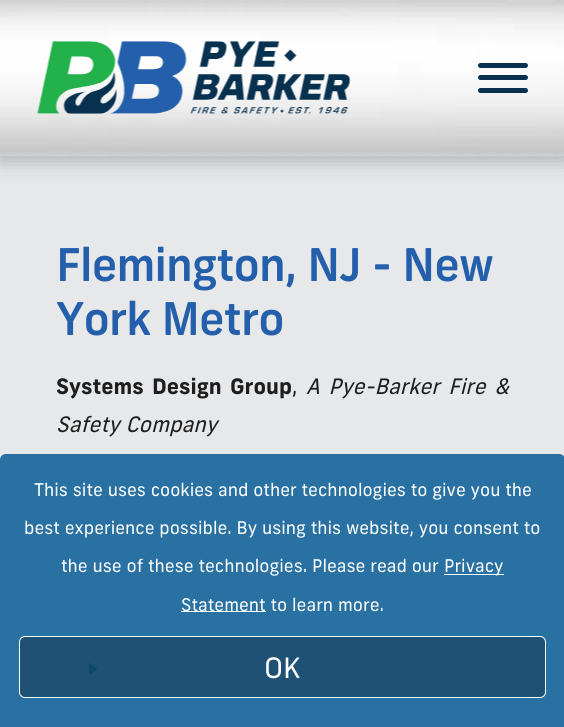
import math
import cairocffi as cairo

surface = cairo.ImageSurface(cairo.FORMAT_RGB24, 564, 727)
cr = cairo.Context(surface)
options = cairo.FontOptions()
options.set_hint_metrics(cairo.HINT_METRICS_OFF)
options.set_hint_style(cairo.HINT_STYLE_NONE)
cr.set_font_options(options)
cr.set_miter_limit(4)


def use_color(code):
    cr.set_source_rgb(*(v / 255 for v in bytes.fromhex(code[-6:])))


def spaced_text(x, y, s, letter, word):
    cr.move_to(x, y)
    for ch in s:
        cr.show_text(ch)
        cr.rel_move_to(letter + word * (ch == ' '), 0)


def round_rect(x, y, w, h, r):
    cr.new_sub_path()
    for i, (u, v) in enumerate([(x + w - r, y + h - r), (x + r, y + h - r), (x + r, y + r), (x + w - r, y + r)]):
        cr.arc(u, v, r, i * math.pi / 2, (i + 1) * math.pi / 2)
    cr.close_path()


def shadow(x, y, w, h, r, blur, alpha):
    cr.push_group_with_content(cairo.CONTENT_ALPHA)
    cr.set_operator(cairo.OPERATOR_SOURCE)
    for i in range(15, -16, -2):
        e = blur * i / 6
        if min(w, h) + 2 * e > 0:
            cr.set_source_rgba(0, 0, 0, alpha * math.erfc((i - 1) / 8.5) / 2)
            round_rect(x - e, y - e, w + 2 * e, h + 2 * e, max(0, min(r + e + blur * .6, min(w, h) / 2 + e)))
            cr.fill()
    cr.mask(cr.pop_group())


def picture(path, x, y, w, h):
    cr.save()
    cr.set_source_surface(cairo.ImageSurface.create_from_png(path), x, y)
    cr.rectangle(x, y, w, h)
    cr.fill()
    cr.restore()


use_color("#e7e8ea")
cr.paint()
use_color("#000000")
shadow(-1, 3, 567, 158, 0, 10, 0.25)
picture("img1.png", 0, 0, 564, 156)
picture("img2.png", 37, 41, 314, 73)
use_color("#07314f")
round_rect(478, 75, 50, 5, 2.5)
cr.fill()
round_rect(478, 63, 50, 5, 2.5)
cr.fill()
round_rect(478, 88, 50, 5, 2.5)
cr.fill()
cr.select_font_face("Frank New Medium")
cr.set_font_size(45)
use_color("#245fac")
spaced_text(56, 281, "Flemington, NJ - New", -0.9, 0)
spaced_text(56, 335, "York Metro", -0.9, 0)
cr.select_font_face("Frank New", cairo.FONT_SLANT_NORMAL, cairo.FONT_WEIGHT_BOLD)
cr.set_font_size(21.25)
use_color("#1e1e1e")
spaced_text(56, 394, "Systems Design Group", 0, 3)
cr.select_font_face("Frank New")
cr.move_to(292, 394)
cr.show_text(",")
cr.select_font_face("Frank New", cairo.FONT_SLANT_ITALIC)
spaced_text(306, 394, "A Pye-Barker Fire &", 0, 3)
cr.move_to(56, 432)
cr.show_text("Safety Company")
use_color("#0b6e45")
cr.new_path()
cr.move_to(89, 675)
cr.line_to(89, 662.5)
cr.line_to(97.5, 669)
cr.close_path()
cr.fill()
cr.set_source_rgba(0.082, 0.392, 0.604, 0.9)
cr.new_path()
cr.move_to(6, 454)
cr.line_to(559, 454)
cr.curve_to(562.5, 454, 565, 456.5, 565, 460)
cr.line_to(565, 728)
cr.line_to(0, 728)
cr.line_to(0, 460)
cr.curve_to(0, 456.5, 2.5, 454, 6, 454)
cr.close_path()
cr.fill()
cr.select_font_face("Frank New")
cr.set_font_size(17.5)
use_color("#ffffff")
cr.move_to(34, 496)
cr.show_text("This site uses cookies and other technologies to give you the")
cr.move_to(24, 534)
cr.show_text("best experience possible. By using this website, you consent to")
cr.move_to(61, 572)
cr.show_text("the use of these technologies. Please read our")
cr.rectangle(444, 574, 60, 1)
cr.fill()
cr.move_to(444, 572)
cr.show_text("Privacy")
cr.rectangle(181, 611, 85, 1)
cr.fill()
cr.move_to(181, 611)
cr.show_text("Statement to learn more.")
cr.set_source_rgba(0.016, 0.016, 0.016, 0.29)
round_rect(19.5, 636.5, 526, 61, 5.5)
cr.fill_preserve()
use_color("#ffffff")
cr.set_line_width(1)
cr.stroke()
cr.set_font_size(28)
cr.move_to(264, 678)
cr.show_text("OK")
surface.write_to_png("result.png")
